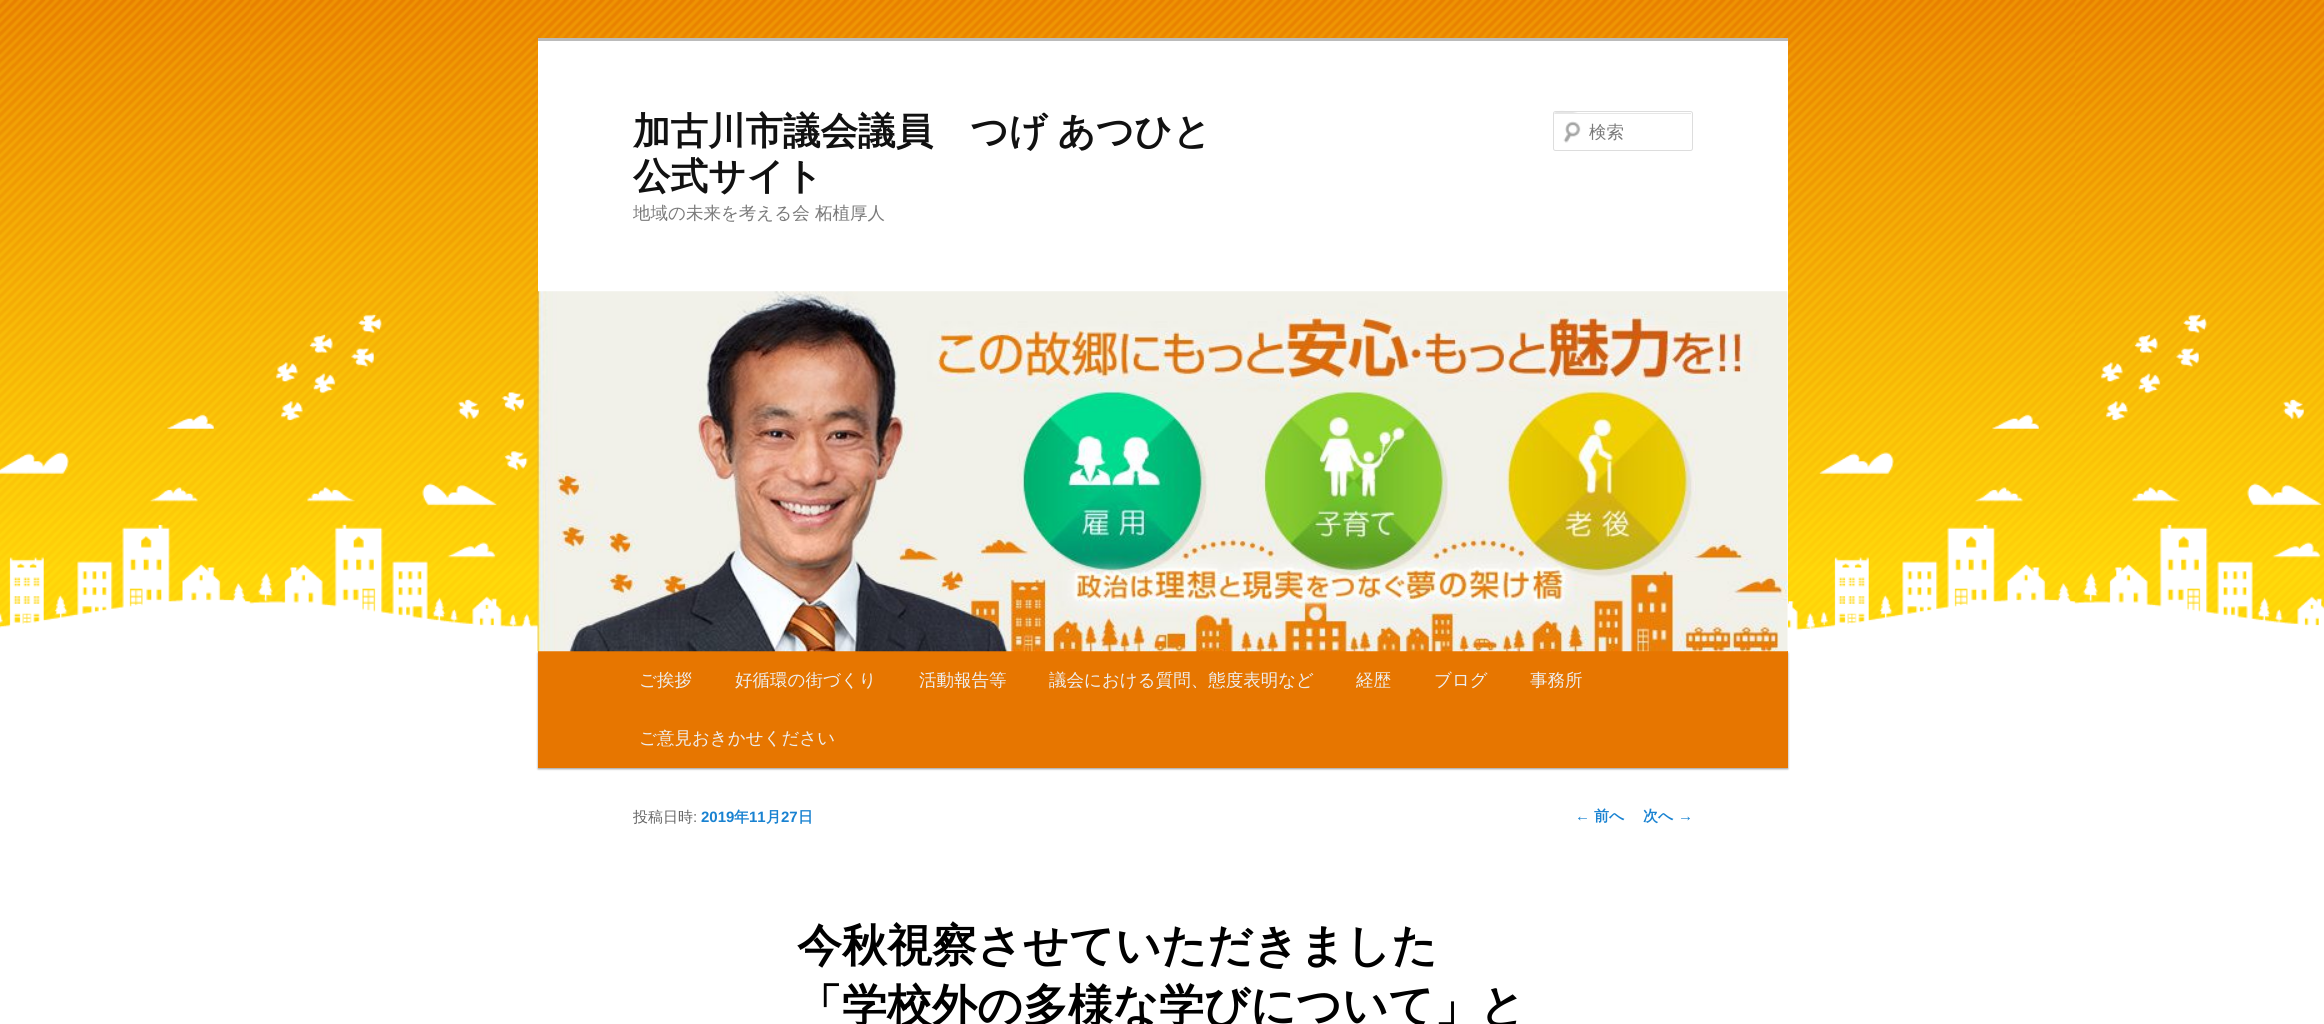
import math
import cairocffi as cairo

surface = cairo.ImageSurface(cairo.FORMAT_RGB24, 2324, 1024)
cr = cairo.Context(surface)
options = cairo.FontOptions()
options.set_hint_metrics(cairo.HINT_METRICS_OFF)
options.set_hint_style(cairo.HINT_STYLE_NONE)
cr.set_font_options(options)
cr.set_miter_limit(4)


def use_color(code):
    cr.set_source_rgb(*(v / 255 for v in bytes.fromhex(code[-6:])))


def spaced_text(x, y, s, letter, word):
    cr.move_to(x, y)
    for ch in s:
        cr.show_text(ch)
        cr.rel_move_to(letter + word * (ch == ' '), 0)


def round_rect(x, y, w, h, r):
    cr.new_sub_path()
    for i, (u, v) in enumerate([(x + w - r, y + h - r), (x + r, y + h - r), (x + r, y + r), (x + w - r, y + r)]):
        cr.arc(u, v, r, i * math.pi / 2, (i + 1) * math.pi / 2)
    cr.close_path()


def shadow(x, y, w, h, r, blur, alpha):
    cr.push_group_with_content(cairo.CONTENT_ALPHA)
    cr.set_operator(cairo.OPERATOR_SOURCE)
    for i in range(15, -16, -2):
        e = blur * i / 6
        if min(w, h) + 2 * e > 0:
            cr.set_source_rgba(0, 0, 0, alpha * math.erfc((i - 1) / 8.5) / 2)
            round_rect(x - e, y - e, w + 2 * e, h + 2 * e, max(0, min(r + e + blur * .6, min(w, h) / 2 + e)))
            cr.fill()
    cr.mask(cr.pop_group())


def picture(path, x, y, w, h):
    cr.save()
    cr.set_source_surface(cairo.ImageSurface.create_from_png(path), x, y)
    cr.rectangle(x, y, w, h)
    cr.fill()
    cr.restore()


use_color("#ffffff")
cr.paint()
picture("img1.png", 0, 0, 2324, 632)
use_color("#ffffff")
cr.rectangle(538, 41, 1250, 591)
cr.fill()
use_color("#bbbbbb")
cr.rectangle(538, 38, 1250, 3)
cr.fill()
cr.select_font_face("WenQuanYi Zen Hei", cairo.FONT_SLANT_NORMAL, cairo.FONT_WEIGHT_BOLD)
cr.set_font_size(37.5)
use_color("#111111")
spaced_text(633, 144, "加古川市議会議員　つげ あつひと", 0, -1)
cr.move_to(633, 189)
cr.show_text("公式サイト")
cr.select_font_face("WenQuanYi Zen Hei Medium")
cr.set_font_size(17.5)
use_color("#7a7a7a")
cr.move_to(633, 219)
cr.show_text("地域の未来を考える会 柘植厚人")
picture("img2.png", 1563, 121, 18, 22)
use_color("#e6e6e6")
cr.new_path()
cr.move_to(1555, 114)
cr.line_to(1690, 114)
cr.curve_to(1691, 114, 1691, 114, 1691, 115)
cr.line_to(1691, 113)
cr.line_to(1578, 113)
cr.curve_to(1577, 113, 1554, 107, 1554, 115)
cr.curve_to(1554, 114, 1554, 114, 1555, 114)
cr.close_path()
cr.fill()
round_rect(1553.5, 111.5, 139, 39, 2)
use_color("#dddddd")
cr.set_line_width(1)
cr.stroke()
use_color("#7a7a7a")
cr.move_to(1589, 138)
cr.show_text("検索")
use_color("#000000")
shadow(538, 653, 1250, 116, 0, 1, 0.4)
use_color("#e77600")
cr.rectangle(538, 651, 1250, 117)
cr.fill()
picture("img3.png", 537, 291, 1251, 361)
use_color("#eeeeee")
cr.move_to(639, 686)
cr.show_text("ご挨拶")
cr.move_to(735, 686)
cr.show_text("好循環の街づくり")
cr.move_to(919, 686)
cr.show_text("活動報告等")
cr.move_to(1049, 686)
cr.show_text("議会における質問、態度表明など")
cr.move_to(1356, 686)
cr.show_text("経歴")
cr.move_to(1434, 686)
cr.show_text("ブログ")
cr.move_to(1530, 686)
cr.show_text("事務所")
cr.move_to(639, 744)
cr.show_text("ご意見おきかせください")
cr.set_font_size(15)
use_color("#666666")
cr.move_to(633, 822)
cr.show_text("投稿日時")
cr.select_font_face("Liberation Sans")
cr.move_to(693, 822)
cr.show_text(":")
cr.select_font_face("Liberation Sans", cairo.FONT_SLANT_NORMAL, cairo.FONT_WEIGHT_BOLD)
use_color("#1982d1")
cr.move_to(701, 822)
cr.show_text("2019")
cr.select_font_face("WenQuanYi Zen Hei", cairo.FONT_SLANT_NORMAL, cairo.FONT_WEIGHT_BOLD)
cr.move_to(734, 822)
cr.show_text("年")
cr.select_font_face("Liberation Sans", cairo.FONT_SLANT_NORMAL, cairo.FONT_WEIGHT_BOLD)
cr.move_to(749, 822)
cr.show_text("11")
cr.select_font_face("WenQuanYi Zen Hei", cairo.FONT_SLANT_NORMAL, cairo.FONT_WEIGHT_BOLD)
cr.move_to(766, 822)
cr.show_text("月")
cr.select_font_face("Liberation Sans", cairo.FONT_SLANT_NORMAL, cairo.FONT_WEIGHT_BOLD)
cr.move_to(781, 822)
cr.show_text("27")
cr.select_font_face("WenQuanYi Zen Hei", cairo.FONT_SLANT_NORMAL, cairo.FONT_WEIGHT_BOLD)
cr.move_to(798, 822)
cr.show_text("日")
cr.set_font_size(45)
use_color("#000000")
cr.move_to(797, 961)
cr.show_text("今秋視察させていただきました")
cr.move_to(797, 1021)
cr.show_text("「学校外の多様な学びについて」と")
cr.select_font_face("Liberation Sans")
cr.set_font_size(15)
use_color("#1982d1")
cr.move_to(1575, 821)
cr.show_text("←")
cr.select_font_face("WenQuanYi Zen Hei", cairo.FONT_SLANT_NORMAL, cairo.FONT_WEIGHT_BOLD)
cr.move_to(1594, 821)
cr.show_text("前へ")
cr.move_to(1643, 821)
cr.show_text("次へ")
cr.select_font_face("Liberation Sans")
cr.move_to(1678, 821)
cr.show_text("→")
surface.write_to_png("result.png")
